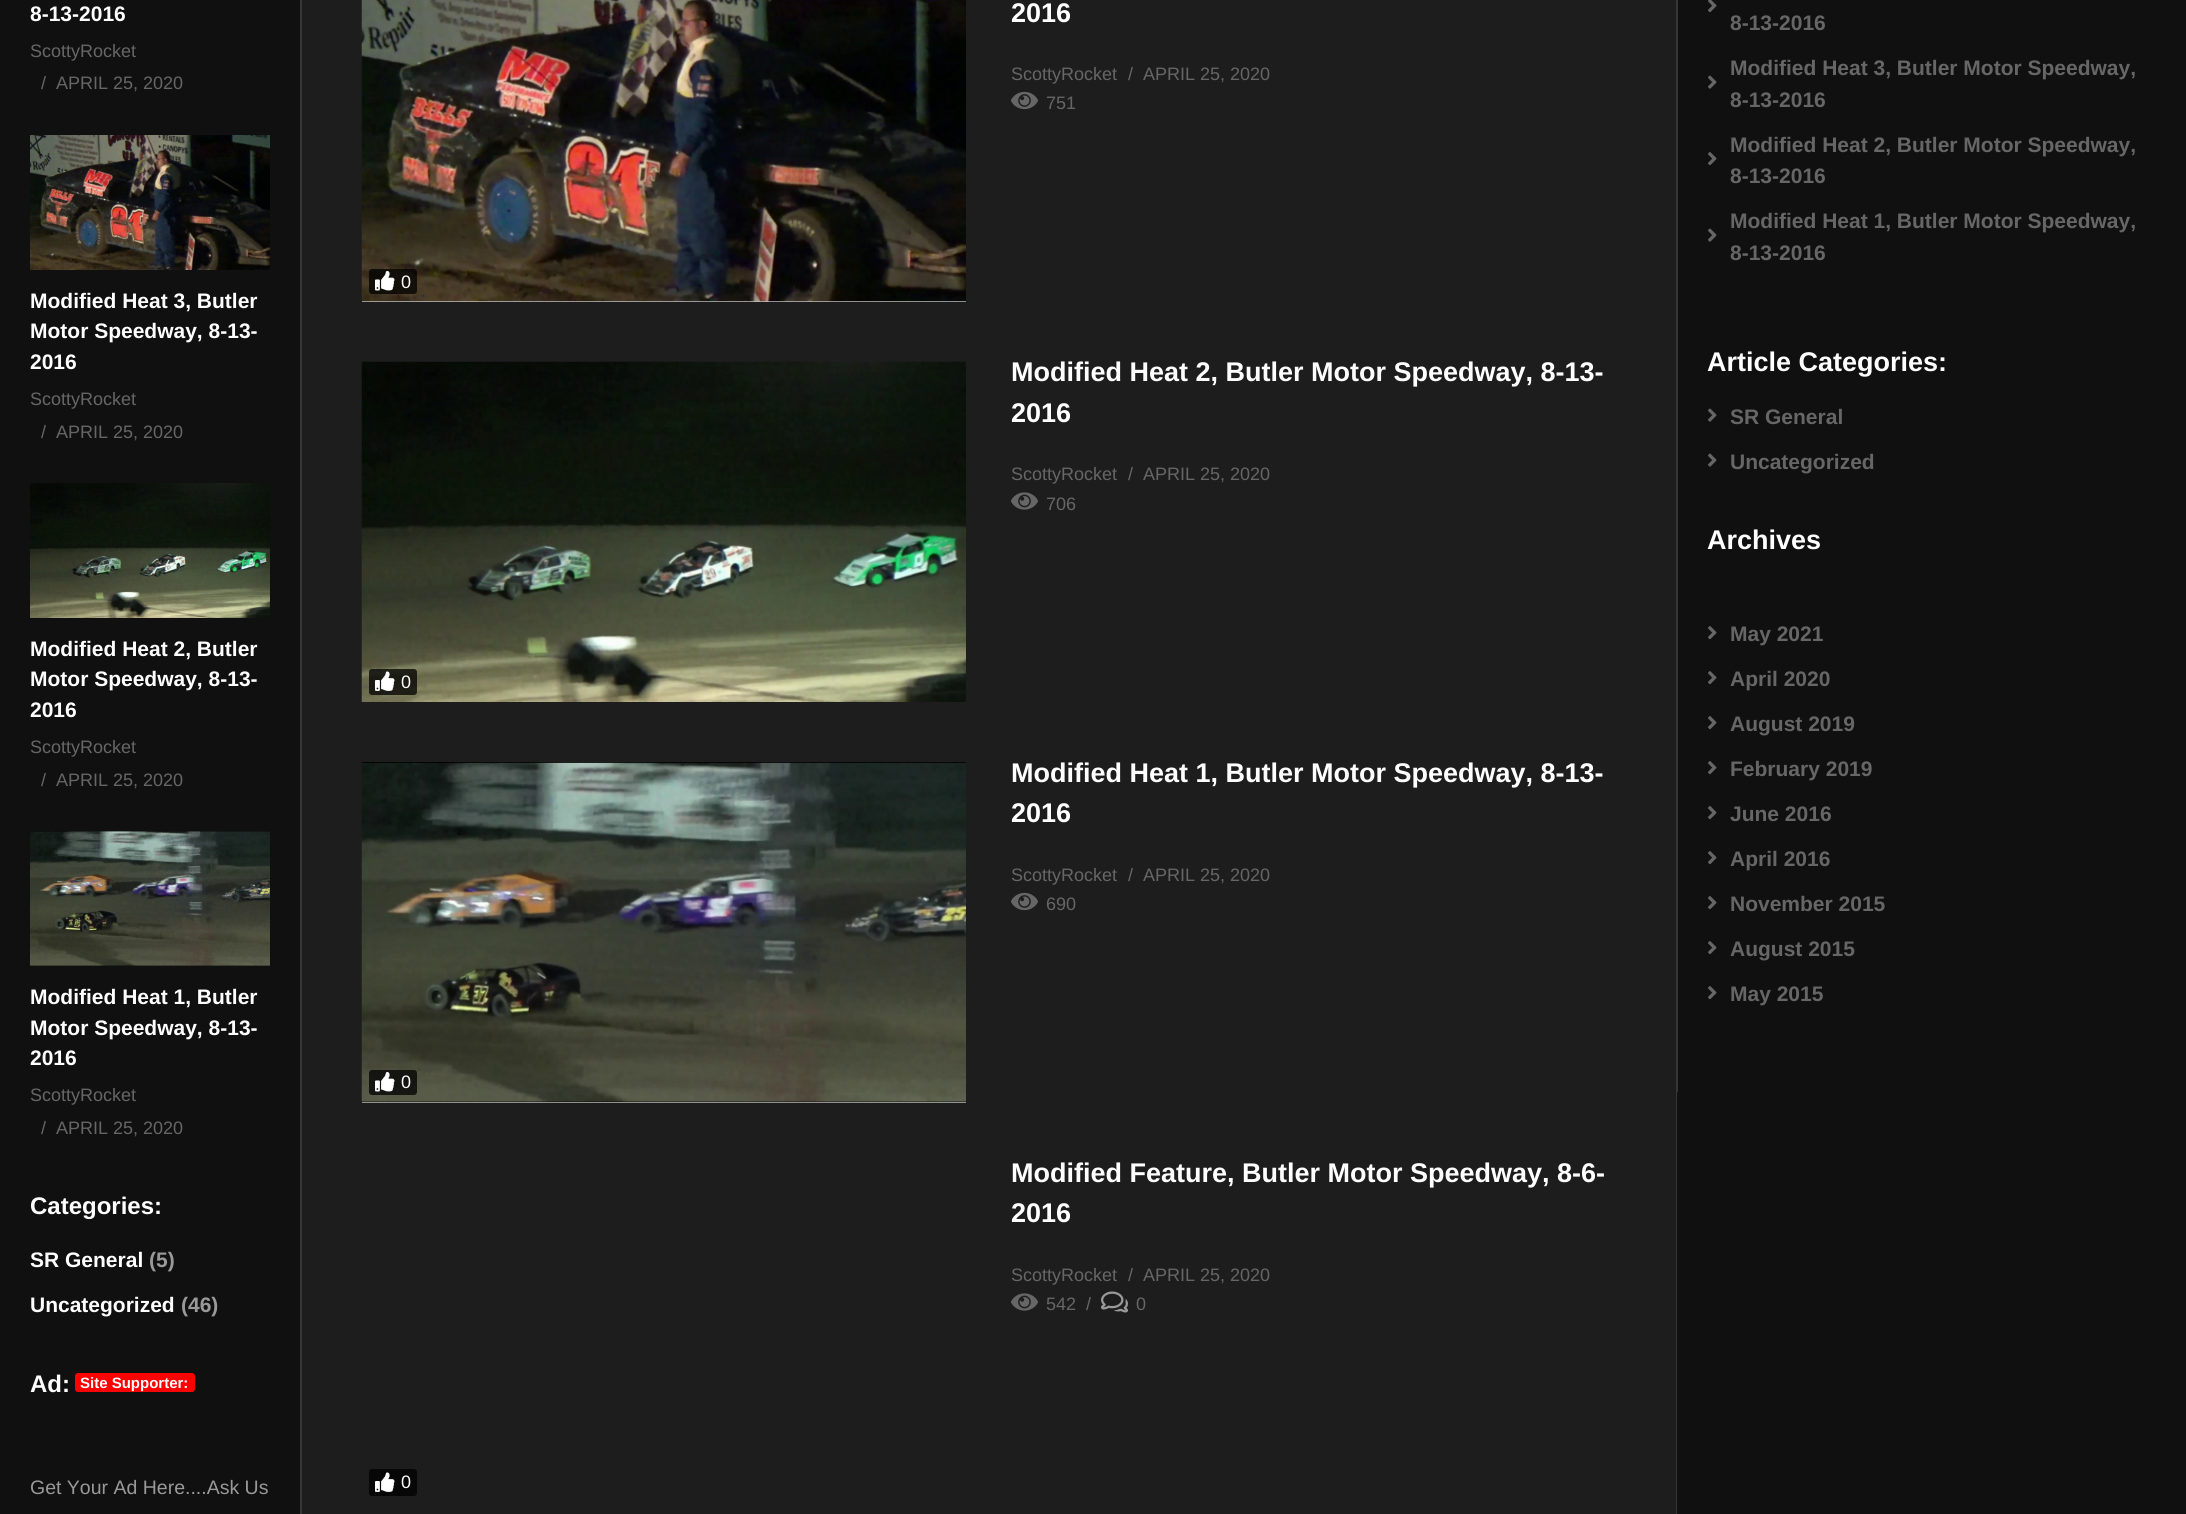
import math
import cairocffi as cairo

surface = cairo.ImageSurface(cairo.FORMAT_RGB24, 2186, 1514)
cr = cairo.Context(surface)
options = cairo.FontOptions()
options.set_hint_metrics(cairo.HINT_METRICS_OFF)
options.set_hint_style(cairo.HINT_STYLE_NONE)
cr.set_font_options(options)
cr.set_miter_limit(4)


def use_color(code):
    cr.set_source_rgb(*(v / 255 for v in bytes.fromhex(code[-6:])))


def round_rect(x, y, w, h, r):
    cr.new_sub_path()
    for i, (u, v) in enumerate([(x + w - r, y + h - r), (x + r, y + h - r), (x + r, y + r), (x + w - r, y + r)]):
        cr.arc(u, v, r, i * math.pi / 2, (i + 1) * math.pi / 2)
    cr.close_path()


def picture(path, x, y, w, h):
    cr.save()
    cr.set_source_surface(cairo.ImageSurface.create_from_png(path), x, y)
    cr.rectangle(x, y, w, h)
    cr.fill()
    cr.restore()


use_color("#101010")
cr.paint()
cr.select_font_face("Liberation Sans", cairo.FONT_SLANT_NORMAL, cairo.FONT_WEIGHT_BOLD)
cr.set_font_size(21)
use_color("#ffffff")
cr.move_to(30, 21)
cr.show_text("8-13-2016")
cr.select_font_face("Liberation Sans")
cr.set_font_size(18)
use_color("#666666")
cr.move_to(30, 57)
cr.show_text("ScottyRocket")
cr.move_to(41, 89)
cr.show_text("/")
cr.move_to(56, 89)
cr.show_text("APRIL 25, 2020")
picture("img1.png", 30, 135, 240, 135)
cr.select_font_face("Liberation Sans", cairo.FONT_SLANT_NORMAL, cairo.FONT_WEIGHT_BOLD)
cr.set_font_size(21)
use_color("#ffffff")
cr.move_to(30, 308)
cr.show_text("Modified Heat 3, Butler")
cr.move_to(30, 338)
cr.show_text("Motor Speedway, 8-13-")
cr.move_to(30, 369)
cr.show_text("2016")
cr.select_font_face("Liberation Sans")
cr.set_font_size(18)
use_color("#666666")
cr.move_to(30, 405)
cr.show_text("ScottyRocket")
cr.move_to(41, 438)
cr.show_text("/")
cr.move_to(56, 438)
cr.show_text("APRIL 25, 2020")
picture("img2.png", 30, 483, 240, 135)
cr.select_font_face("Liberation Sans", cairo.FONT_SLANT_NORMAL, cairo.FONT_WEIGHT_BOLD)
cr.set_font_size(21)
use_color("#ffffff")
cr.move_to(30, 656)
cr.show_text("Modified Heat 2, Butler")
cr.move_to(30, 686)
cr.show_text("Motor Speedway, 8-13-")
cr.move_to(30, 717)
cr.show_text("2016")
cr.select_font_face("Liberation Sans")
cr.set_font_size(18)
use_color("#666666")
cr.move_to(30, 753)
cr.show_text("ScottyRocket")
cr.move_to(41, 786)
cr.show_text("/")
cr.move_to(56, 786)
cr.show_text("APRIL 25, 2020")
picture("img3.png", 30, 831, 240, 135)
cr.select_font_face("Liberation Sans", cairo.FONT_SLANT_NORMAL, cairo.FONT_WEIGHT_BOLD)
cr.set_font_size(21)
use_color("#ffffff")
cr.move_to(30, 1004)
cr.show_text("Modified Heat 1, Butler")
cr.move_to(30, 1035)
cr.show_text("Motor Speedway, 8-13-")
cr.move_to(30, 1065)
cr.show_text("2016")
cr.select_font_face("Liberation Sans")
cr.set_font_size(18)
use_color("#666666")
cr.move_to(30, 1101)
cr.show_text("ScottyRocket")
cr.move_to(41, 1134)
cr.show_text("/")
cr.move_to(56, 1134)
cr.show_text("APRIL 25, 2020")
cr.select_font_face("Liberation Sans", cairo.FONT_SLANT_NORMAL, cairo.FONT_WEIGHT_BOLD)
cr.set_font_size(24)
use_color("#ffffff")
cr.move_to(30, 1214)
cr.show_text("Categories:")
cr.set_font_size(21)
cr.move_to(30, 1267)
cr.show_text("SR General")
use_color("#999999")
cr.move_to(149, 1267)
cr.show_text("(5)")
use_color("#ffffff")
cr.move_to(30, 1312)
cr.show_text("Uncategorized")
use_color("#999999")
cr.move_to(181, 1312)
cr.show_text("(46)")
cr.set_font_size(24)
use_color("#ffffff")
cr.move_to(30, 1392)
cr.show_text("Ad:")
use_color("#ff0000")
round_rect(75, 1373, 120, 19, 3)
cr.fill()
cr.set_font_size(15)
use_color("#ffffff")
cr.move_to(80, 1388)
cr.show_text("Site Supporter:")
cr.select_font_face("Liberation Sans")
cr.set_font_size(19.5)
use_color("#999999")
cr.move_to(30, 1494)
cr.show_text("Get Your Ad Here....Ask Us")
use_color("#1d1d1d")
cr.rectangle(302, 0, 1374, 1514)
cr.fill()
use_color("#363636")
cr.rectangle(1676, 1092, 1, 422)
cr.fill()
cr.rectangle(300, 0, 2, 1514)
cr.fill()
cr.select_font_face("Liberation Sans", cairo.FONT_SLANT_NORMAL, cairo.FONT_WEIGHT_BOLD)
cr.set_font_size(27)
use_color("#ffffff")
cr.move_to(1011, 22)
cr.show_text("2016")
cr.select_font_face("Liberation Sans")
cr.set_font_size(18)
use_color("#666666")
cr.move_to(1011, 80)
cr.show_text("ScottyRocket")
cr.move_to(1128, 80)
cr.show_text("/")
cr.move_to(1143, 80)
cr.show_text("APRIL 25, 2020")
picture("img4.png", 1011, 91, 27, 19)
cr.move_to(1046, 109)
cr.show_text("751")
use_color("#bcbcbc")
cr.rectangle(362, 301, 604, 1)
cr.fill()
picture("img5.png", 361, 0, 605, 302)
cr.set_source_rgba(0, 0, 0, 0.75)
round_rect(369, 269, 48, 25, 3)
cr.fill()
picture("img6.png", 375, 271, 20, 20)
use_color("#ffffff")
cr.move_to(401, 288)
cr.show_text("0")
cr.select_font_face("Liberation Sans", cairo.FONT_SLANT_NORMAL, cairo.FONT_WEIGHT_BOLD)
cr.set_font_size(27)
cr.move_to(1011, 381)
cr.show_text("Modified Heat 2, Butler Motor Speedway, 8-13-")
cr.move_to(1011, 422)
cr.show_text("2016")
cr.select_font_face("Liberation Sans")
cr.set_font_size(18)
use_color("#666666")
cr.move_to(1011, 480)
cr.show_text("ScottyRocket")
cr.move_to(1128, 480)
cr.show_text("/")
cr.move_to(1143, 480)
cr.show_text("APRIL 25, 2020")
picture("img7.png", 1011, 492, 27, 18)
cr.move_to(1046, 510)
cr.show_text("706")
picture("img8.png", 361, 361, 605, 341)
cr.set_source_rgba(0, 0, 0, 0.75)
round_rect(369, 669, 48, 26, 3)
cr.fill()
picture("img9.png", 375, 671, 20, 20)
use_color("#ffffff")
cr.move_to(401, 688)
cr.show_text("0")
cr.select_font_face("Liberation Sans", cairo.FONT_SLANT_NORMAL, cairo.FONT_WEIGHT_BOLD)
cr.set_font_size(27)
cr.move_to(1011, 782)
cr.show_text("Modified Heat 1, Butler Motor Speedway, 8-13-")
cr.move_to(1011, 822)
cr.show_text("2016")
cr.select_font_face("Liberation Sans")
cr.set_font_size(18)
use_color("#666666")
cr.move_to(1011, 881)
cr.show_text("ScottyRocket")
cr.move_to(1128, 881)
cr.show_text("/")
cr.move_to(1143, 881)
cr.show_text("APRIL 25, 2020")
picture("img4.png", 1011, 892, 27, 19)
cr.move_to(1046, 910)
cr.show_text("690")
use_color("#bcbcbc")
cr.rectangle(362, 1102, 604, 1)
cr.fill()
picture("img10.png", 361, 762, 605, 341)
cr.set_source_rgba(0, 0, 0, 0.75)
round_rect(369, 1070, 48, 25, 3)
cr.fill()
picture("img11.png", 375, 1072, 20, 20)
use_color("#ffffff")
cr.move_to(401, 1088)
cr.show_text("0")
cr.select_font_face("Liberation Sans", cairo.FONT_SLANT_NORMAL, cairo.FONT_WEIGHT_BOLD)
cr.set_font_size(27)
cr.move_to(1011, 1182)
cr.show_text("Modified Feature, Butler Motor Speedway, 8-6-")
cr.move_to(1011, 1222)
cr.show_text("2016")
cr.select_font_face("Liberation Sans")
cr.set_font_size(18)
use_color("#666666")
cr.move_to(1011, 1281)
cr.show_text("ScottyRocket")
cr.move_to(1128, 1281)
cr.show_text("/")
cr.move_to(1143, 1281)
cr.show_text("APRIL 25, 2020")
picture("img7.png", 1011, 1293, 27, 18)
cr.move_to(1046, 1310)
cr.show_text("542")
cr.move_to(1086, 1310)
cr.show_text("/")
picture("img12.png", 1101, 1291, 27, 22)
cr.move_to(1136, 1310)
cr.show_text("0")
use_color("#070707")
round_rect(369, 1469, 48, 27, 3)
cr.fill()
picture("img13.png", 375, 1472, 20, 20)
use_color("#ffffff")
cr.move_to(401, 1488)
cr.show_text("0")
use_color("#363636")
cr.rectangle(1676, 0, 2, 1092)
cr.fill()
picture("img14.png", 1708, 0, 9, 13)
cr.select_font_face("Liberation Sans", cairo.FONT_SLANT_NORMAL, cairo.FONT_WEIGHT_BOLD)
cr.set_font_size(21)
use_color("#666666")
cr.move_to(1730, 30)
cr.show_text("8-13-2016")
cr.move_to(1730, 75)
cr.show_text("Modified Heat 3, Butler Motor Speedway,")
picture("img15.png", 1708, 75, 9, 14)
cr.move_to(1730, 107)
cr.show_text("8-13-2016")
cr.move_to(1730, 152)
cr.show_text("Modified Heat 2, Butler Motor Speedway,")
picture("img16.png", 1708, 152, 9, 14)
cr.move_to(1730, 183)
cr.show_text("8-13-2016")
cr.move_to(1730, 228)
cr.show_text("Modified Heat 1, Butler Motor Speedway,")
picture("img15.png", 1708, 228, 9, 14)
cr.move_to(1730, 260)
cr.show_text("8-13-2016")
cr.set_font_size(27)
use_color("#ffffff")
cr.move_to(1707, 371)
cr.show_text("Article Categories:")
picture("img15.png", 1708, 408, 9, 14)
cr.set_font_size(21)
use_color("#666666")
cr.move_to(1730, 424)
cr.show_text("SR General")
picture("img15.png", 1708, 453, 9, 14)
cr.move_to(1730, 469)
cr.show_text("Uncategorized")
cr.set_font_size(27)
use_color("#ffffff")
cr.move_to(1707, 549)
cr.show_text("Archives")
picture("img16.png", 1708, 626, 9, 14)
cr.set_font_size(21)
use_color("#666666")
cr.move_to(1730, 641)
cr.show_text("May 2021")
picture("img16.png", 1708, 671, 9, 14)
cr.move_to(1730, 686)
cr.show_text("April 2020")
picture("img16.png", 1708, 716, 9, 14)
cr.move_to(1730, 731)
cr.show_text("August 2019")
picture("img16.png", 1708, 761, 9, 14)
cr.move_to(1730, 776)
cr.show_text("February 2019")
picture("img16.png", 1708, 806, 9, 14)
cr.move_to(1730, 821)
cr.show_text("June 2016")
picture("img16.png", 1708, 851, 9, 14)
cr.move_to(1730, 866)
cr.show_text("April 2016")
picture("img16.png", 1708, 896, 9, 14)
cr.move_to(1730, 911)
cr.show_text("November 2015")
picture("img16.png", 1708, 941, 9, 14)
cr.move_to(1730, 956)
cr.show_text("August 2015")
picture("img16.png", 1708, 986, 9, 14)
cr.move_to(1730, 1001)
cr.show_text("May 2015")
surface.write_to_png("result.png")
